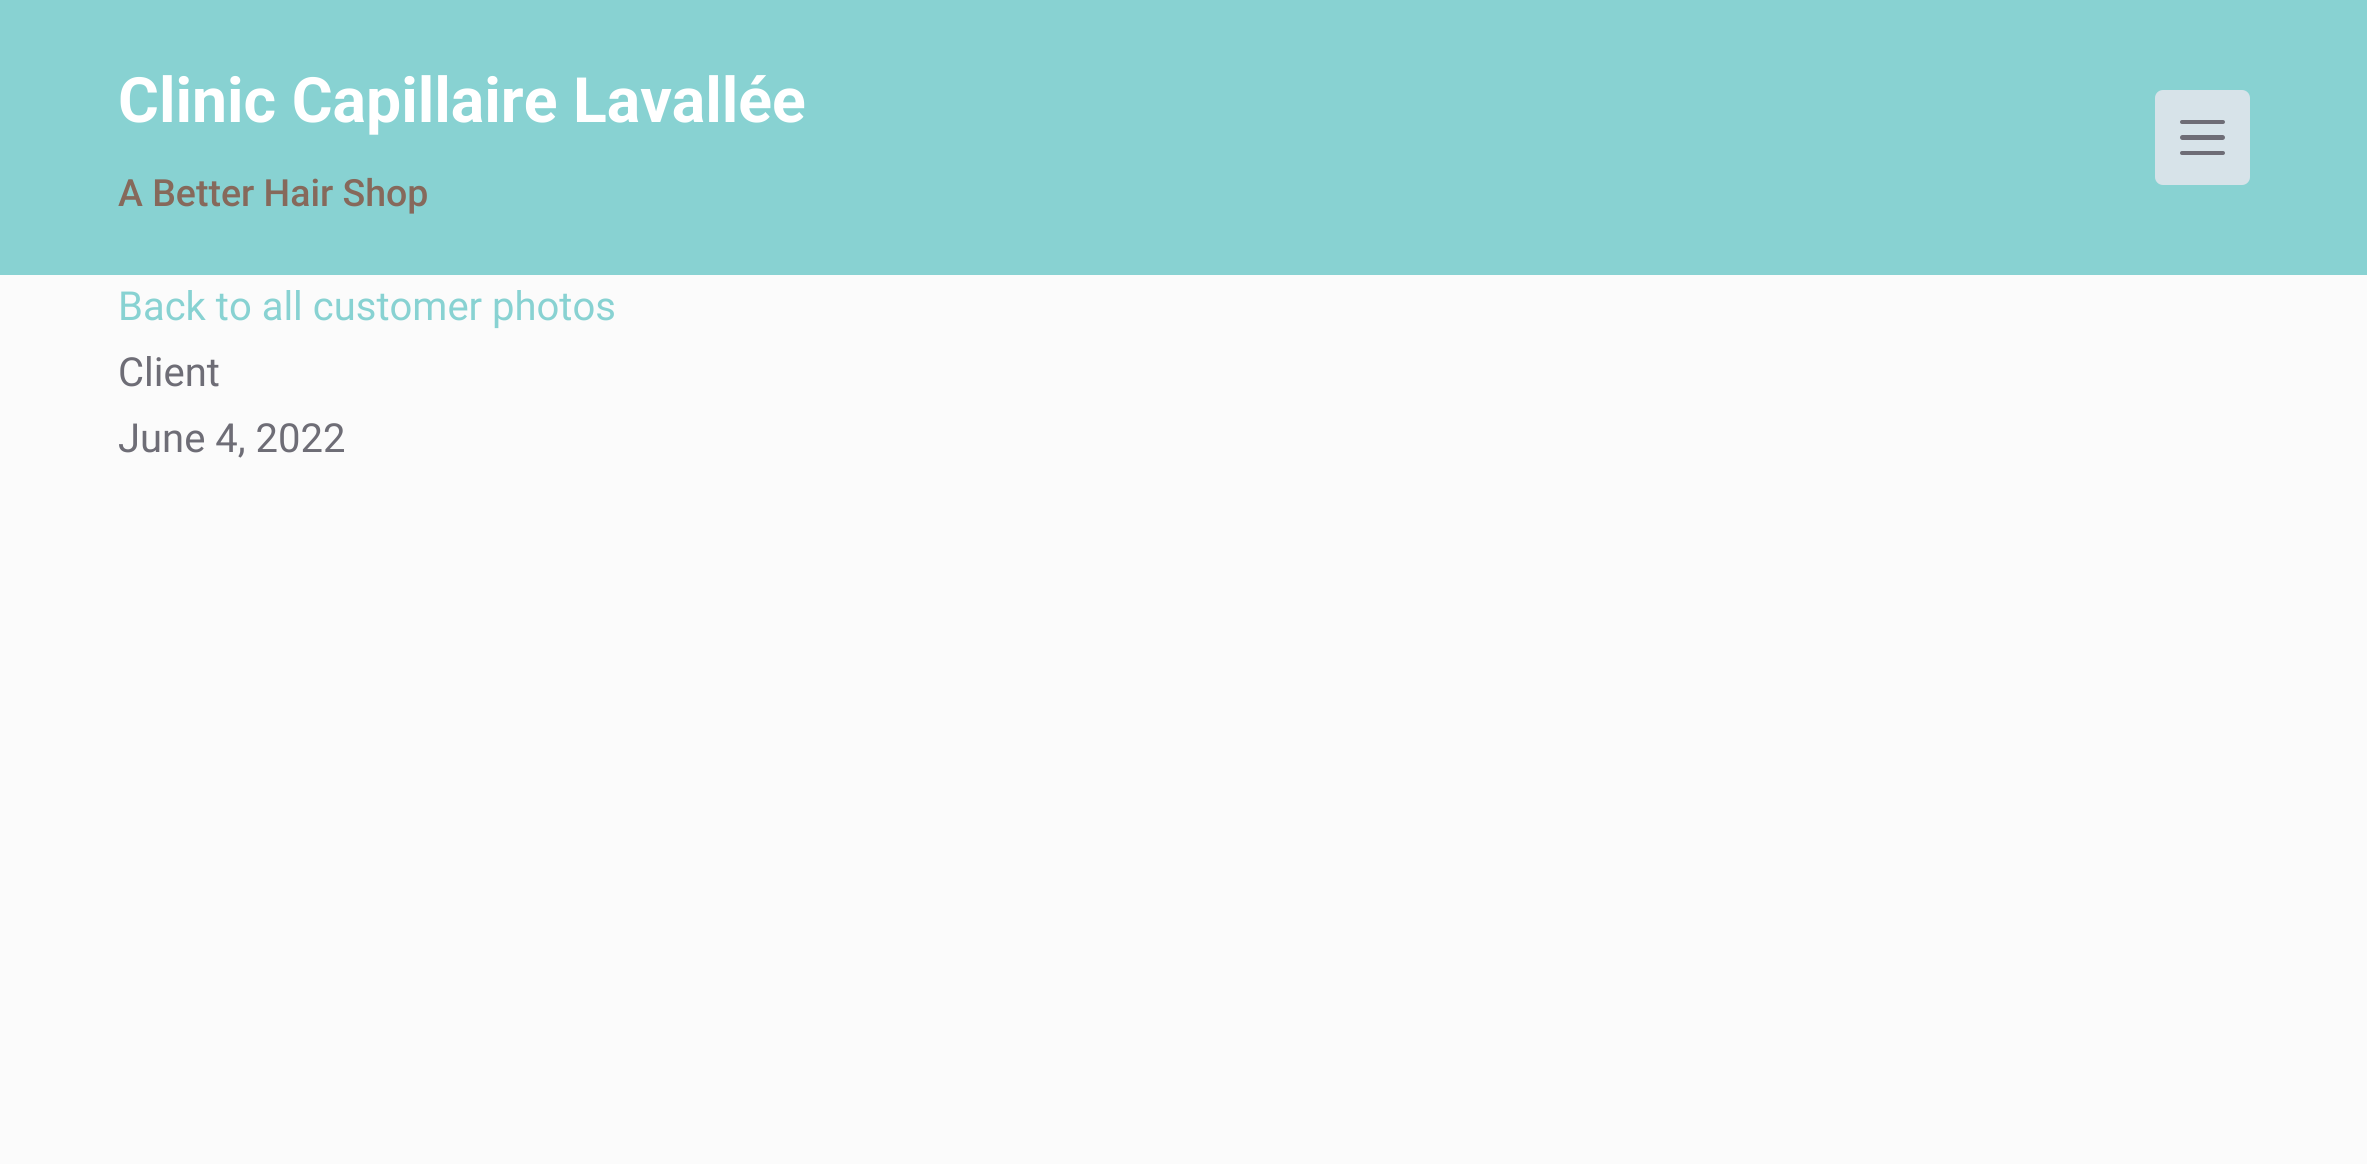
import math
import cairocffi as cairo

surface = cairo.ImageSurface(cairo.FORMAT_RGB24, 2367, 1164)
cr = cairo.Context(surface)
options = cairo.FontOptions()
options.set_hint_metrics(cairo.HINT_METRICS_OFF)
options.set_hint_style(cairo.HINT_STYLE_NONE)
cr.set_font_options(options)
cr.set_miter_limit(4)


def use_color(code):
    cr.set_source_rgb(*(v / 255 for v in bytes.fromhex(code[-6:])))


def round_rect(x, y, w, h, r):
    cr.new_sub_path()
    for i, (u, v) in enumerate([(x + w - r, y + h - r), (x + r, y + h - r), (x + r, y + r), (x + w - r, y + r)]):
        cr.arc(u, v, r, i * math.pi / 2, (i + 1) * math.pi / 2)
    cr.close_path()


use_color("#fbfbfb")
cr.paint()
use_color("#88d2d2")
cr.rectangle(0, 0, 2367, 275)
cr.fill()
cr.select_font_face("Roboto", cairo.FONT_SLANT_NORMAL, cairo.FONT_WEIGHT_BOLD)
cr.set_font_size(62.5)
use_color("#ffffff")
cr.move_to(118, 122)
cr.show_text("Clinic Capillaire Lavallée")
cr.select_font_face("Roboto Medium")
cr.set_font_size(37.5)
use_color("#86695b")
cr.move_to(118, 206)
cr.show_text("A Better Hair Shop")
use_color("#d7e3e9")
round_rect(2155, 90, 95, 95, 8)
cr.fill()
use_color("#6e6d76")
round_rect(2180, 120, 45, 4, 2)
cr.fill()
round_rect(2180, 135, 45, 5, 2.5)
cr.fill()
round_rect(2180, 151, 45, 4, 2)
cr.fill()
cr.select_font_face("Roboto")
cr.set_font_size(40)
use_color("#88d2d2")
cr.move_to(118, 320)
cr.show_text("Back to all customer photos")
use_color("#6e6d76")
cr.move_to(118, 386)
cr.show_text("Client")
cr.move_to(118, 452)
cr.show_text("June 4, 2022")
surface.write_to_png("result.png")
